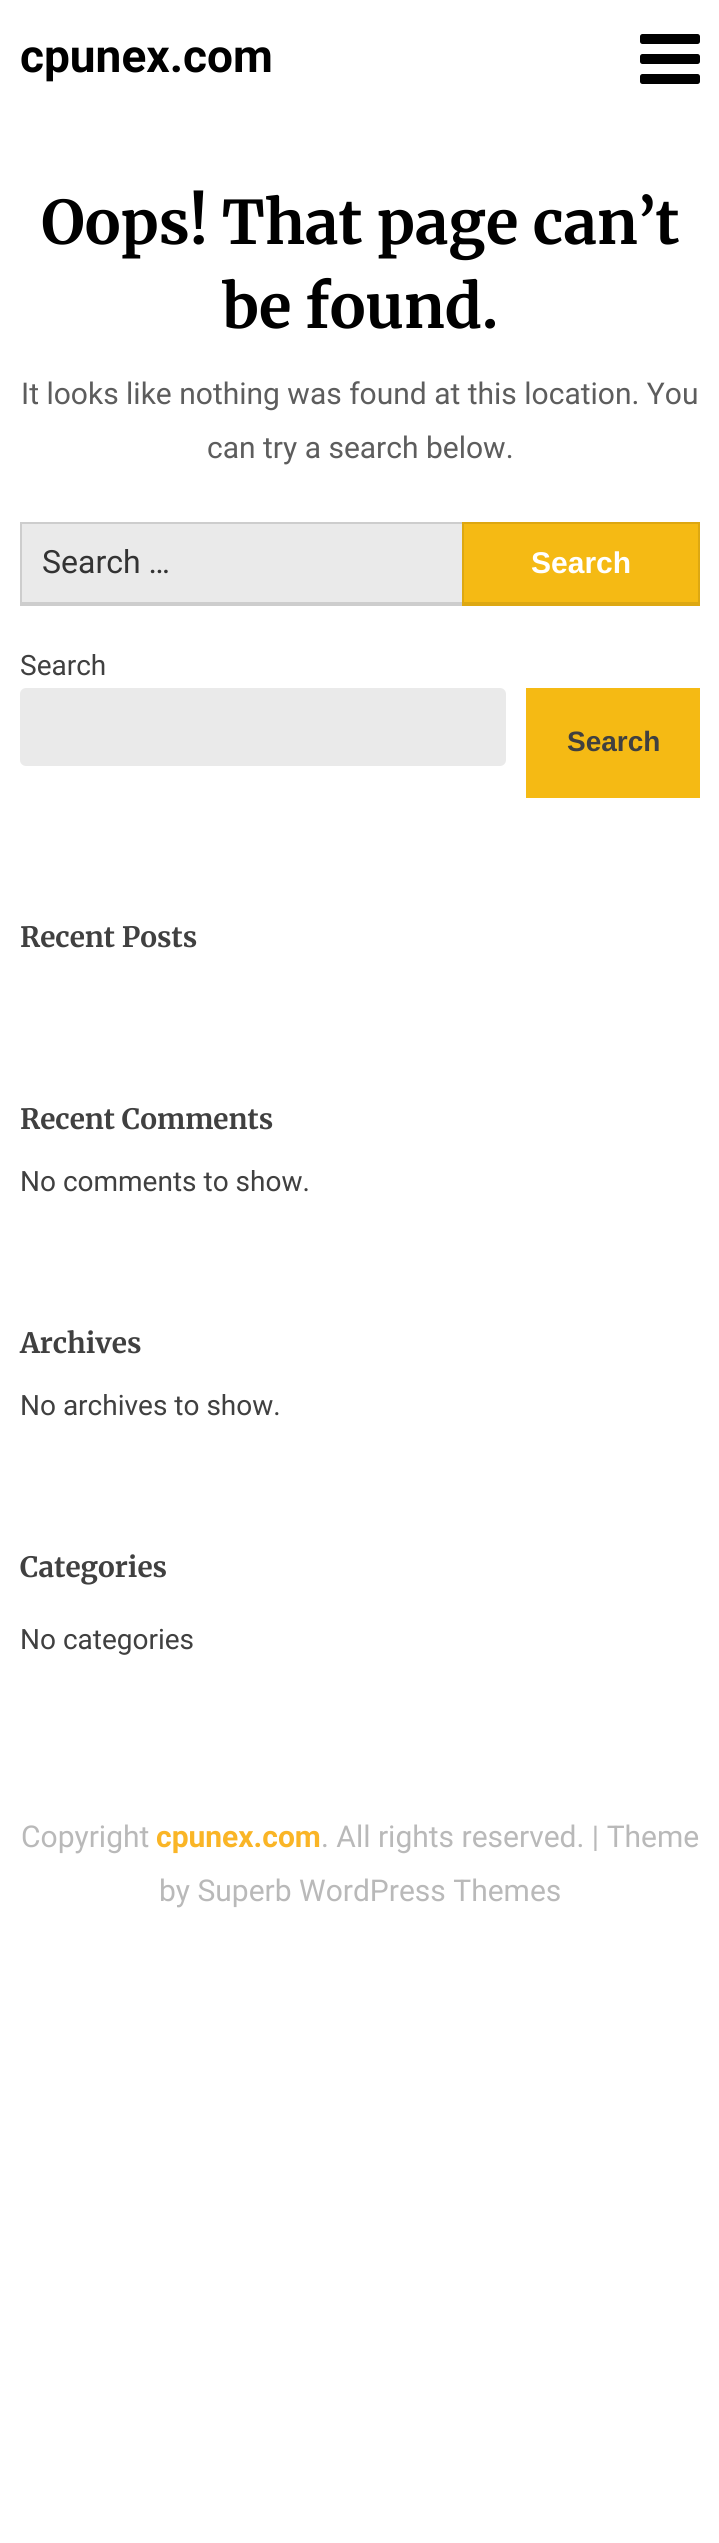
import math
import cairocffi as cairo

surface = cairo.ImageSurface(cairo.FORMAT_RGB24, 719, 2543)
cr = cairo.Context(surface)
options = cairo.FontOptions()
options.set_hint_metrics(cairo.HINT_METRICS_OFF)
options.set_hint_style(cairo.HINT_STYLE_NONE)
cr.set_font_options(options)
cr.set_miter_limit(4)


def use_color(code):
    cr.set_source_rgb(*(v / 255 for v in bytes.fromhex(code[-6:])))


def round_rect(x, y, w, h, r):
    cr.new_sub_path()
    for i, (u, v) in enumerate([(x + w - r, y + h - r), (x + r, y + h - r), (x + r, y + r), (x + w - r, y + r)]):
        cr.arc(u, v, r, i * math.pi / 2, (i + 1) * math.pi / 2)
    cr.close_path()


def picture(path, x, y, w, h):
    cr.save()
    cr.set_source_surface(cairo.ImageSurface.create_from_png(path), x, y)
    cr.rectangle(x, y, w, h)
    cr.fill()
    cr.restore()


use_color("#ffffff")
cr.paint()
cr.select_font_face("Roboto", cairo.FONT_SLANT_NORMAL, cairo.FONT_WEIGHT_BOLD)
cr.set_font_size(46)
use_color("#000000")
cr.move_to(20, 72)
cr.show_text("cpunex.com")
picture("img1.png", 640, 34, 60, 50)
cr.select_font_face("Merriweather", cairo.FONT_SLANT_NORMAL, cairo.FONT_WEIGHT_BOLD)
cr.set_font_size(60)
cr.move_to(41, 244)
cr.show_text("Oops! That page can’t")
cr.move_to(222, 328)
cr.show_text("be found.")
cr.select_font_face("Roboto")
cr.set_font_size(30)
use_color("#5d5d5d")
cr.move_to(21, 404)
cr.show_text("It looks like nothing was found at this location. You")
cr.move_to(207, 458)
cr.show_text("can try a search below.")
use_color("#eaeaea")
cr.rectangle(22, 524, 440, 78)
cr.fill()
use_color("#cdcdcd")
cr.rectangle(20, 522, 442, 2)
cr.fill()
cr.rectangle(20, 602, 442, 4)
cr.fill()
cr.rectangle(20, 522, 2, 84)
cr.fill()
cr.set_font_size(32)
use_color("#333333")
cr.move_to(42, 573)
cr.show_text("Search …")
use_color("#f5ba14")
cr.rectangle(462, 522, 238, 84)
cr.fill()
use_color("#dda712")
cr.new_path()
cr.move_to(462, 522)
cr.line_to(700, 522)
cr.line_to(698, 524)
cr.line_to(464, 524)
cr.close_path()
cr.fill()
cr.set_source_rgba(0, 0, 0, 0.1)
cr.new_path()
cr.move_to(700, 522)
cr.line_to(700, 606)
cr.line_to(698, 602)
cr.line_to(698, 524)
cr.close_path()
cr.fill()
cr.new_path()
cr.move_to(700, 606)
cr.line_to(462, 606)
cr.line_to(464, 602)
cr.line_to(698, 602)
cr.close_path()
cr.fill()
cr.new_path()
cr.move_to(462, 606)
cr.line_to(462, 522)
cr.line_to(464, 524)
cr.line_to(464, 602)
cr.close_path()
cr.fill()
cr.select_font_face("Liberation Sans", cairo.FONT_SLANT_NORMAL, cairo.FONT_WEIGHT_BOLD)
cr.set_font_size(30)
use_color("#ffffff")
cr.move_to(531, 573)
cr.show_text("Search")
cr.select_font_face("Roboto")
cr.set_font_size(28)
use_color("#404040")
cr.move_to(20, 675)
cr.show_text("Search")
use_color("#eaeaea")
round_rect(20, 688, 486, 78, 6)
cr.fill()
use_color("#f5ba14")
cr.rectangle(526, 688, 174, 110)
cr.fill()
cr.select_font_face("Liberation Sans", cairo.FONT_SLANT_NORMAL, cairo.FONT_WEIGHT_BOLD)
use_color("#404040")
cr.move_to(567, 751)
cr.show_text("Search")
cr.select_font_face("Merriweather", cairo.FONT_SLANT_NORMAL, cairo.FONT_WEIGHT_BOLD)
cr.move_to(20, 947)
cr.show_text("Recent Posts")
cr.move_to(20, 1129)
cr.show_text("Recent Comments")
cr.select_font_face("Roboto")
cr.move_to(20, 1191)
cr.show_text("No comments to show.")
cr.select_font_face("Merriweather", cairo.FONT_SLANT_NORMAL, cairo.FONT_WEIGHT_BOLD)
cr.move_to(20, 1353)
cr.show_text("Archives")
cr.select_font_face("Roboto")
cr.move_to(20, 1415)
cr.show_text("No archives to show.")
cr.select_font_face("Merriweather", cairo.FONT_SLANT_NORMAL, cairo.FONT_WEIGHT_BOLD)
cr.move_to(20, 1577)
cr.show_text("Categories")
cr.select_font_face("Roboto")
cr.move_to(20, 1649)
cr.show_text("No categories")
cr.set_font_size(30)
use_color("#b9b9b9")
cr.move_to(21, 1847)
cr.show_text("Copyright")
cr.select_font_face("Roboto", cairo.FONT_SLANT_NORMAL, cairo.FONT_WEIGHT_BOLD)
use_color("#fab526")
cr.move_to(156, 1847)
cr.show_text("cpunex.com")
cr.select_font_face("Roboto")
use_color("#b9b9b9")
cr.move_to(321, 1847)
cr.show_text(". All rights reserved. | Theme")
cr.move_to(159, 1901)
cr.show_text("by Superb WordPress Themes")
surface.write_to_png("result.png")
